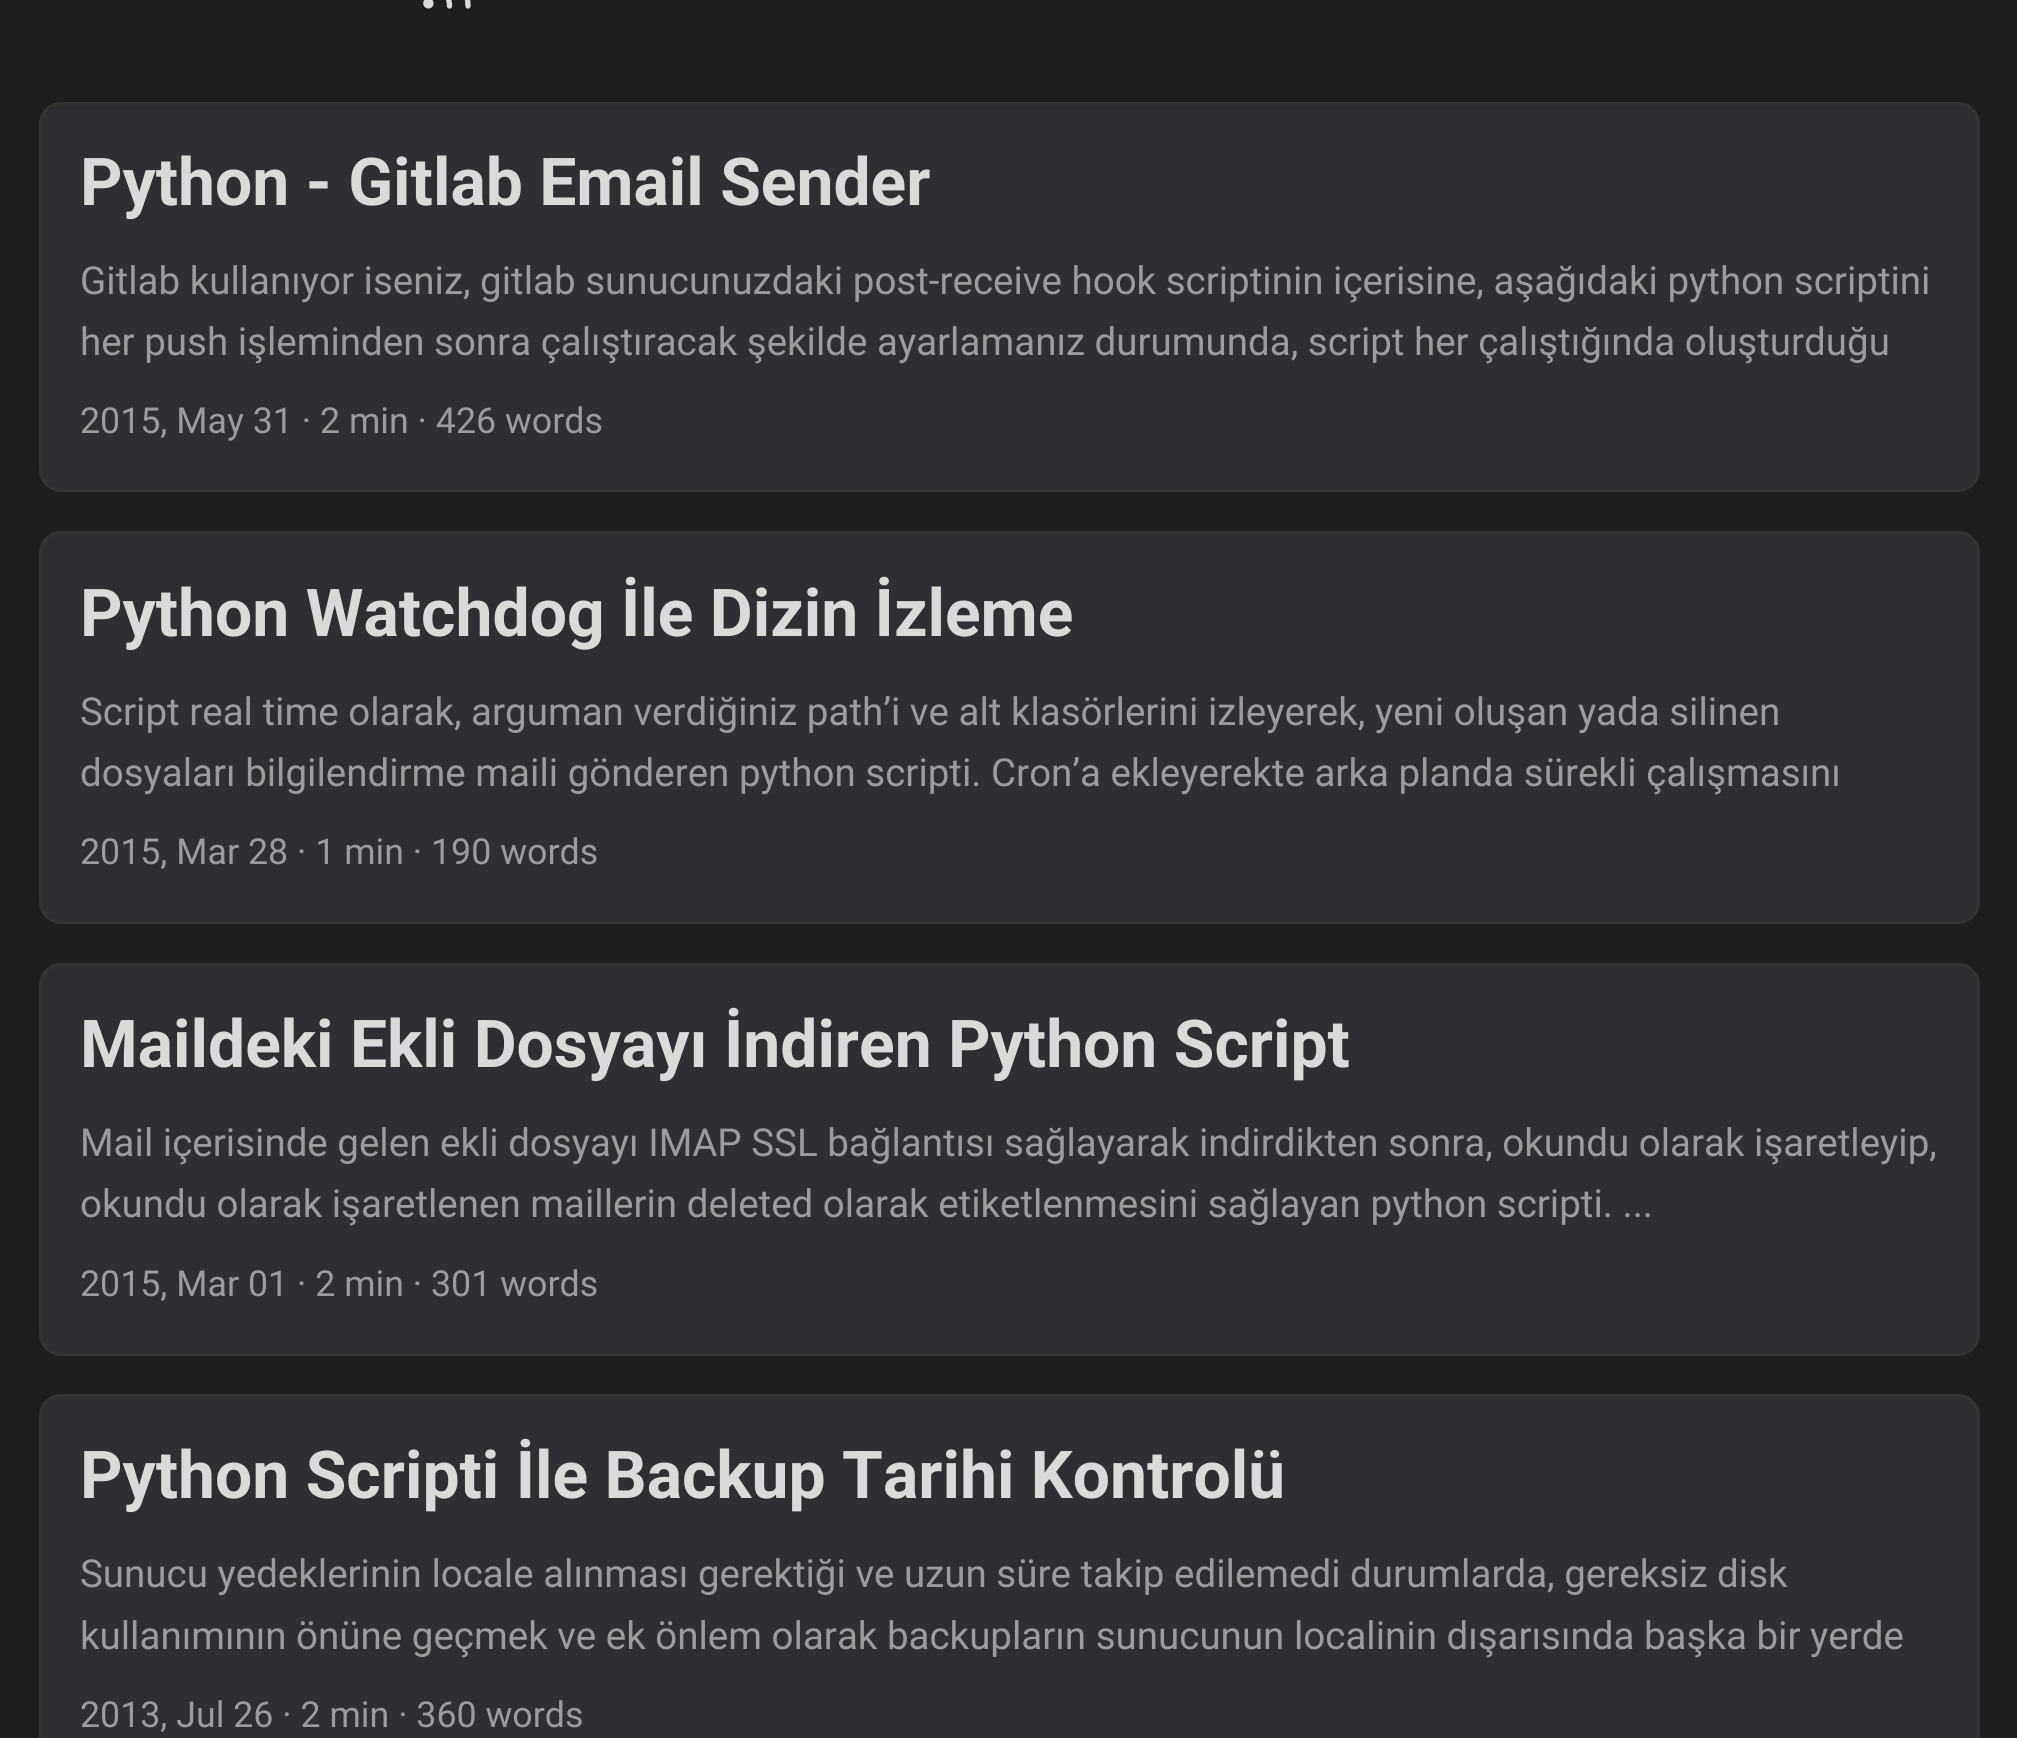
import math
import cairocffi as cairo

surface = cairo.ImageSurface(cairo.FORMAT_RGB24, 2017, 1738)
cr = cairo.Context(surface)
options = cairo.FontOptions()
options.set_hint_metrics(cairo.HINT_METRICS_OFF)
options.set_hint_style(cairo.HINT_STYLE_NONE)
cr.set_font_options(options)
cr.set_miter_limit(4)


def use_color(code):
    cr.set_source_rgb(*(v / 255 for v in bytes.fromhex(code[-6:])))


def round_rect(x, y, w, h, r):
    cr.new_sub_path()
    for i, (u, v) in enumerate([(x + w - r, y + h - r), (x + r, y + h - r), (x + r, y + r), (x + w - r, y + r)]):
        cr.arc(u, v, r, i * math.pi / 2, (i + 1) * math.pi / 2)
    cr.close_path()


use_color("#1d1e20")
cr.paint()
cr.arc(428.4, 3.3, 2.6, 0, 2 * math.pi)
use_color("#dadadb")
cr.set_line_width(5.3)
cr.stroke()
cr.new_path()
cr.move_to(426, -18)
cr.curve_to(439, -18, 449.5, -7, 449.5, 6)
cr.move_to(426, -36)
cr.curve_to(449, -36, 468, -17.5, 468, 6)
cr.set_line_cap(cairo.LINE_CAP_ROUND)
cr.set_line_join(cairo.LINE_JOIN_ROUND)
cr.stroke()
use_color("#2e2e33")
round_rect(40.5, 103.5, 1938, 387, 20.5)
cr.fill_preserve()
use_color("#333333")
cr.set_line_width(3)
cr.set_line_cap(cairo.LINE_CAP_BUTT)
cr.set_line_join(cairo.LINE_JOIN_MITER)
cr.stroke()
cr.select_font_face("Roboto", cairo.FONT_SLANT_NORMAL, cairo.FONT_WEIGHT_BOLD)
cr.set_font_size(66)
use_color("#dadadb")
cr.move_to(80, 205)
cr.show_text("Python - Gitlab Email Sender")
cr.select_font_face("Roboto")
cr.set_font_size(38.5)
use_color("#9b9c9d")
cr.move_to(80, 294)
cr.show_text("Gitlab kullanıyor iseniz, gitlab sunucunuzdaki post-receive hook scriptinin içerisine, aşağıdaki python scriptini")
cr.move_to(80, 355)
cr.show_text("her push işleminden sonra çalıştıracak şekilde ayarlamanız durumunda, script her çalıştığında oluşturduğu")
cr.set_font_size(35.75)
cr.move_to(80, 433)
cr.show_text("2015, May 31 · 2 min · 426 words")
use_color("#2e2e33")
round_rect(40.5, 532.5, 1938, 390, 20.5)
cr.fill_preserve()
use_color("#333333")
cr.stroke()
cr.select_font_face("Roboto", cairo.FONT_SLANT_NORMAL, cairo.FONT_WEIGHT_BOLD)
cr.set_font_size(66)
use_color("#dadadb")
cr.move_to(80, 636)
cr.show_text("Python Watchdog İle Dizin İzleme")
cr.select_font_face("Roboto")
cr.set_font_size(38.5)
use_color("#9b9c9d")
cr.move_to(80, 725)
cr.show_text("Script real time olarak, arguman verdiğiniz path’i ve alt klasörlerini izleyerek, yeni oluşan yada silinen")
cr.move_to(80, 786)
cr.show_text("dosyaları bilgilendirme maili gönderen python scripti. Cron’a ekleyerekte arka planda sürekli çalışmasını")
cr.set_font_size(35.75)
cr.move_to(80, 864)
cr.show_text("2015, Mar 28 · 1 min · 190 words")
use_color("#2e2e33")
round_rect(40.5, 964.5, 1938, 390, 20.5)
cr.fill_preserve()
use_color("#333333")
cr.stroke()
cr.select_font_face("Roboto", cairo.FONT_SLANT_NORMAL, cairo.FONT_WEIGHT_BOLD)
cr.set_font_size(66)
use_color("#dadadb")
cr.move_to(80, 1067)
cr.show_text("Maildeki Ekli Dosyayı İndiren Python Script")
cr.select_font_face("Roboto")
cr.set_font_size(38.5)
use_color("#9b9c9d")
cr.move_to(80, 1156)
cr.show_text("Mail içerisinde gelen ekli dosyayı IMAP SSL bağlantısı sağlayarak indirdikten sonra, okundu olarak işaretleyip,")
cr.move_to(80, 1217)
cr.show_text("okundu olarak işaretlenen maillerin deleted olarak etiketlenmesini sağlayan python scripti. ...")
cr.set_font_size(35.75)
cr.move_to(80, 1296)
cr.show_text("2015, Mar 01 · 2 min · 301 words")
use_color("#2e2e33")
round_rect(40.5, 1395.5, 1938, 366, 20.5)
cr.fill_preserve()
use_color("#333333")
cr.stroke()
cr.select_font_face("Roboto", cairo.FONT_SLANT_NORMAL, cairo.FONT_WEIGHT_BOLD)
cr.set_font_size(66)
use_color("#dadadb")
cr.move_to(80, 1498)
cr.show_text("Python Scripti İle Backup Tarihi Kontrolü")
cr.select_font_face("Roboto")
cr.set_font_size(38.5)
use_color("#9b9c9d")
cr.move_to(80, 1587)
cr.show_text("Sunucu yedeklerinin locale alınması gerektiği ve uzun süre takip edilemedi durumlarda, gereksiz disk")
cr.move_to(80, 1649)
cr.show_text("kullanımının önüne geçmek ve ek önlem olarak backupların sunucunun localinin dışarısında başka bir yerde")
cr.set_font_size(35.75)
cr.move_to(80, 1727)
cr.show_text("2013, Jul 26 · 2 min · 360 words")
surface.write_to_png("result.png")
